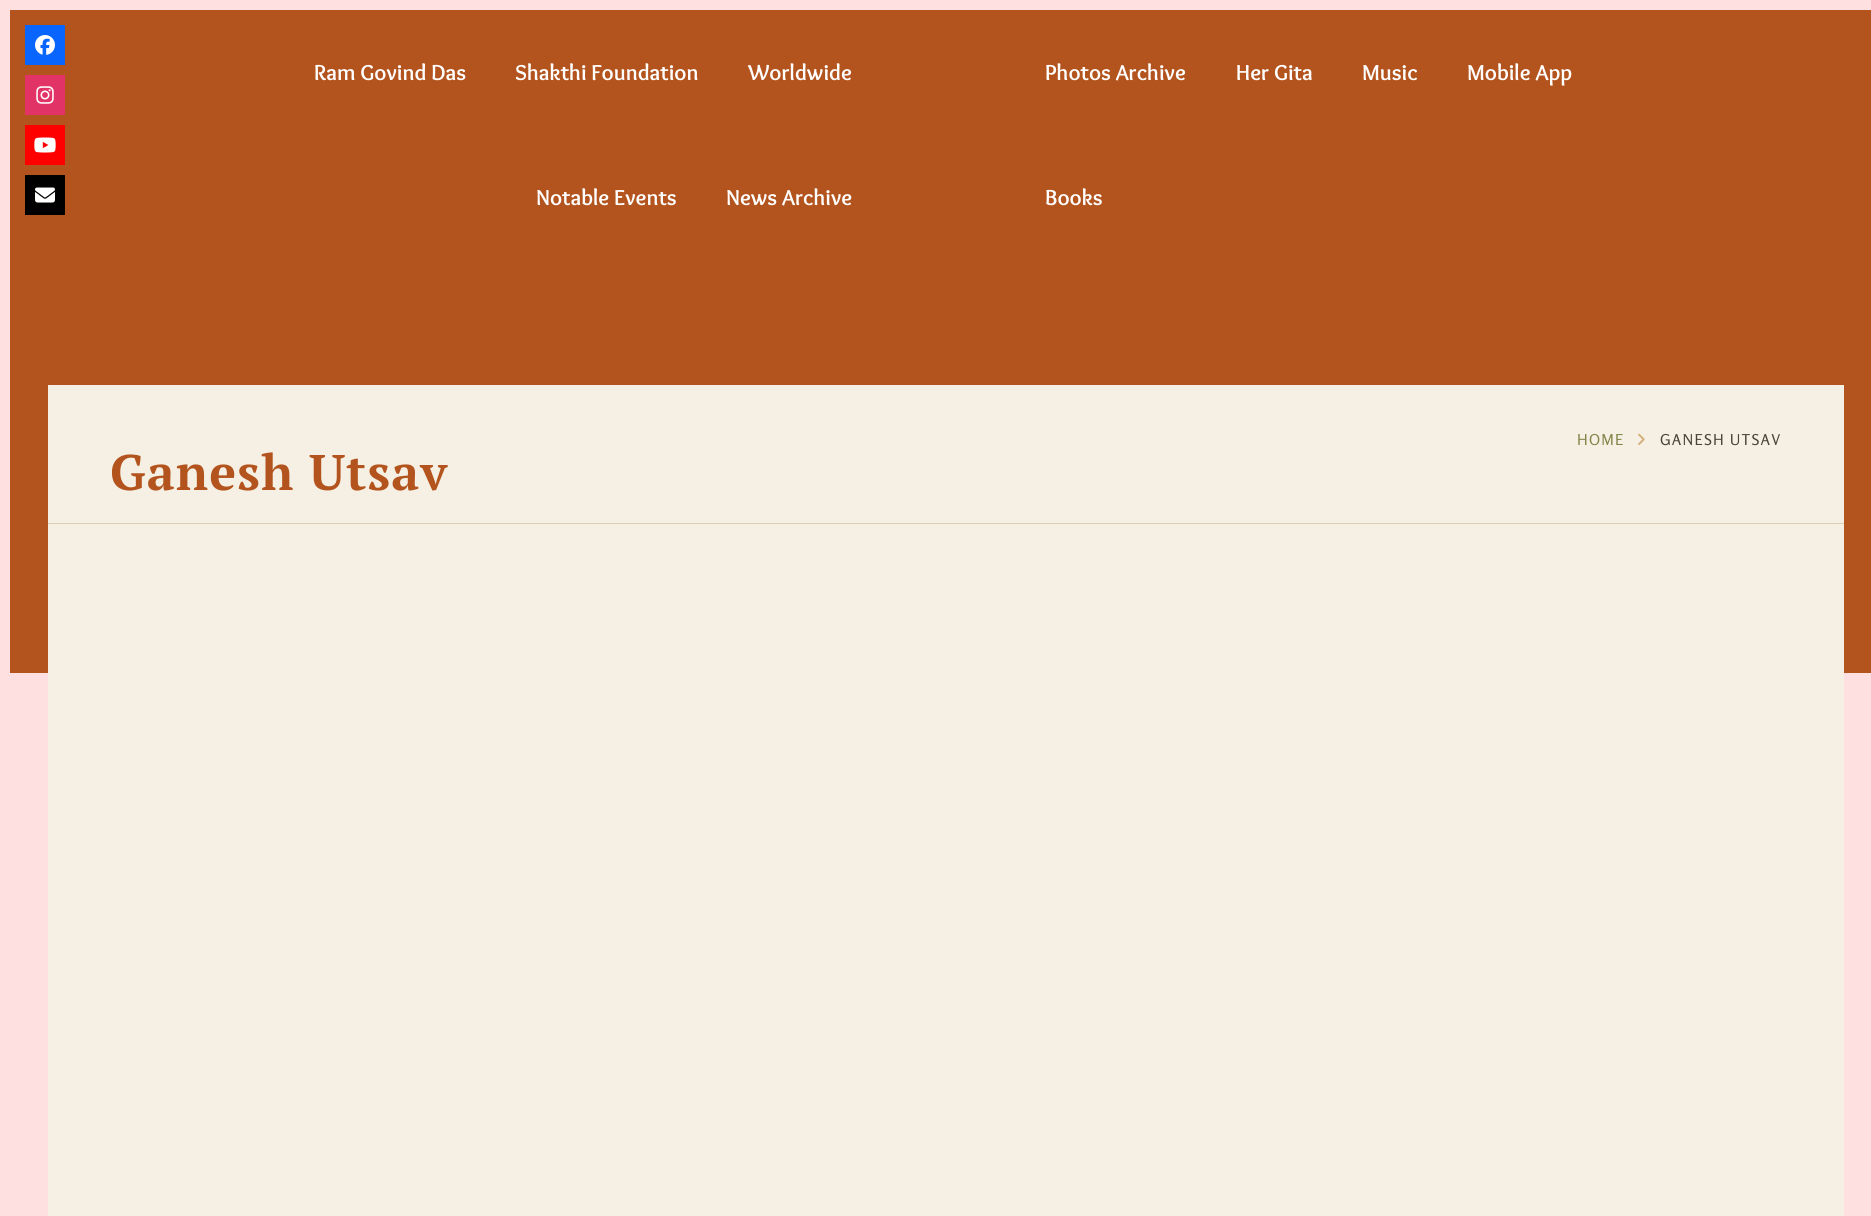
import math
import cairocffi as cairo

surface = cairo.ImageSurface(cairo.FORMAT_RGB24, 1871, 1216)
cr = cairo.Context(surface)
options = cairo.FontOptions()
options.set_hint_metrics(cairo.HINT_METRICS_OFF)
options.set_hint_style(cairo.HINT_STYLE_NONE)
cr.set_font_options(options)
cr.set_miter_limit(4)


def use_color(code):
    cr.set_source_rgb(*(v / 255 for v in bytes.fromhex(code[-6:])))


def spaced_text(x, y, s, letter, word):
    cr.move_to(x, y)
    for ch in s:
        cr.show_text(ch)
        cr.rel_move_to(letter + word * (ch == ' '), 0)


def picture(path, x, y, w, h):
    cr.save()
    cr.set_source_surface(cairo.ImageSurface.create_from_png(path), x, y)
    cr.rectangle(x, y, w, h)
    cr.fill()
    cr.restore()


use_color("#ffe0e0")
cr.paint()
use_color("#b3541e")
cr.rectangle(10, 10, 1861, 663)
cr.fill()
use_color("#0866ff")
cr.rectangle(25, 25, 40, 40)
cr.fill()
picture("img1.png", 35, 35, 20, 20)
use_color("#e23367")
cr.rectangle(25, 75, 40, 40)
cr.fill()
picture("img2.png", 36, 86, 18, 18)
use_color("#ff0000")
cr.rectangle(25, 125, 40, 40)
cr.fill()
picture("img3.png", 34, 137, 22, 16)
use_color("#000000")
cr.rectangle(25, 175, 40, 40)
cr.fill()
picture("img4.png", 35, 187, 20, 16)
cr.select_font_face("Overlock", cairo.FONT_SLANT_NORMAL, cairo.FONT_WEIGHT_BOLD)
cr.set_font_size(22.5)
use_color("#ffffff")
cr.move_to(314, 80)
cr.show_text("Ram Govind Das")
cr.move_to(515, 80)
cr.show_text("Shakthi Foundation")
cr.move_to(748, 80)
cr.show_text("Worldwide")
cr.move_to(536, 205)
cr.show_text("Notable Events")
cr.move_to(726, 205)
cr.show_text("News Archive")
cr.move_to(1045, 80)
cr.show_text("Photos Archive")
cr.move_to(1236, 80)
cr.show_text("Her Gita")
cr.move_to(1362, 80)
cr.show_text("Music")
cr.move_to(1467, 80)
cr.show_text("Mobile App")
cr.move_to(1045, 205)
cr.show_text("Books")
use_color("#f5f0e3")
cr.rectangle(48, 385, 1796, 831)
cr.fill()
use_color("#ddcfb7")
cr.rectangle(48, 523, 1796, 1)
cr.fill()
cr.select_font_face("Rosario")
cr.set_font_size(15)
use_color("#7e8446")
spaced_text(1577, 445, "HOME", 1.25, 0)
picture("img5.png", 1638, 433, 7, 12)
use_color("#484338")
spaced_text(1660, 445, "GANESH UTSAV", 1.25, 0)
cr.select_font_face("PT Serif", cairo.FONT_SLANT_NORMAL, cairo.FONT_WEIGHT_BOLD)
cr.set_font_size(50)
use_color("#b3541e")
spaced_text(110, 490, "Ganesh Utsav", 1.25, 0)
surface.write_to_png("result.png")
